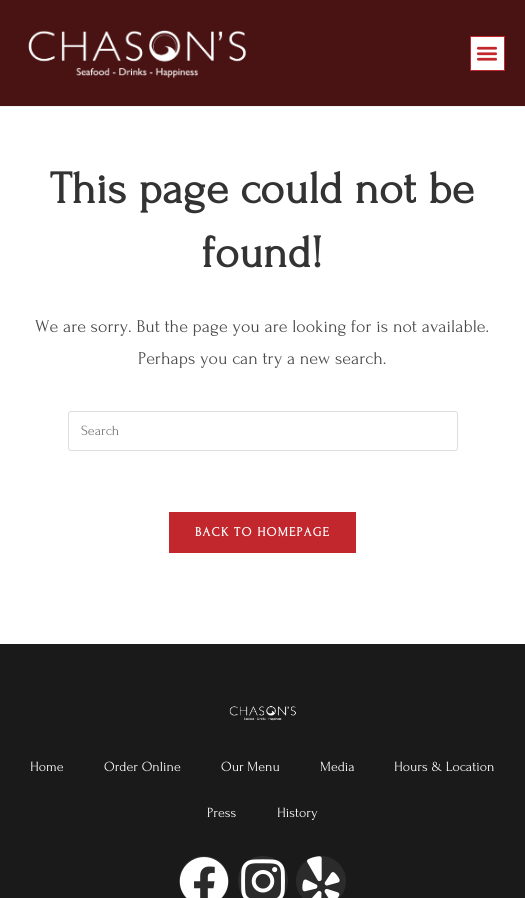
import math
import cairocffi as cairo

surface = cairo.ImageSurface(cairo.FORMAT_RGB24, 525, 898)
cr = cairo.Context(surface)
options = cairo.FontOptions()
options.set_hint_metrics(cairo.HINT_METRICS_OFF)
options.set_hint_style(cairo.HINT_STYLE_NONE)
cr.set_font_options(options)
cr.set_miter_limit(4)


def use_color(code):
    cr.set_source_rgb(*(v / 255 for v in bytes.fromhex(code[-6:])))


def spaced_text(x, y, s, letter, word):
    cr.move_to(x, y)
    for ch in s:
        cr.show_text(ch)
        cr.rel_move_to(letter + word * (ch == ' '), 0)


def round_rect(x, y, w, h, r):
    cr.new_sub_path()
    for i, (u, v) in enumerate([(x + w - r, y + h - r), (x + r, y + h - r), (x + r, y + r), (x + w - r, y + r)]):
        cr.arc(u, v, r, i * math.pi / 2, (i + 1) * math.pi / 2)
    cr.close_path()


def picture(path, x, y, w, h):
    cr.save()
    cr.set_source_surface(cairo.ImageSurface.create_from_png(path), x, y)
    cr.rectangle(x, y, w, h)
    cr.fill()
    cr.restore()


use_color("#ffffff")
cr.paint()
use_color("#f1f1f1")
cr.rectangle(0, 106, 525, 1)
cr.fill()
use_color("#4a1313")
cr.rectangle(0, 0, 525, 106)
cr.fill()
picture("img1.png", 28, 30, 218, 48)
use_color("#ffffff")
cr.rectangle(470.5, 36.5, 34, 34)
cr.fill_preserve()
use_color("#c1272d")
cr.set_line_width(1)
cr.stroke()
picture("img2.png", 476, 46, 22, 15)
cr.select_font_face("Forum", cairo.FONT_SLANT_NORMAL, cairo.FONT_WEIGHT_BOLD)
cr.set_font_size(46)
use_color("#333333")
cr.move_to(50, 203)
cr.show_text("This page could not be")
cr.move_to(202, 267)
cr.show_text("found!")
cr.select_font_face("Forum")
cr.set_font_size(18)
use_color("#4a4a4a")
cr.move_to(35, 332)
cr.show_text("We are sorry. But the page you are looking for is not available.")
cr.move_to(138, 364)
cr.show_text("Perhaps you can try a new search.")
round_rect(68.5, 411.5, 389, 39, 2.5)
use_color("#dddddd")
cr.stroke()
cr.set_font_size(14)
use_color("#757575")
cr.move_to(81, 435)
cr.show_text("Search")
use_color("#c1272d")
cr.rectangle(169, 512, 187, 41)
cr.fill()
cr.select_font_face("Forum", cairo.FONT_SLANT_NORMAL, cairo.FONT_WEIGHT_BOLD)
cr.set_font_size(13)
use_color("#ffffff")
spaced_text(195, 536, "BACK TO HOMEPAGE", 1.25, 0)
use_color("#1a1a1a")
cr.rectangle(0, 644, 525, 254)
cr.fill()
picture("img3.png", 229, 706, 67, 15)
cr.select_font_face("Forum")
cr.set_font_size(14)
use_color("#ffffff")
cr.move_to(30, 771)
cr.show_text("Home")
cr.move_to(104, 771)
cr.show_text("Order Online")
cr.move_to(221, 771)
cr.show_text("Our Menu")
cr.move_to(320, 771)
cr.show_text("Media")
cr.move_to(394, 771)
cr.show_text("Hours & Location")
cr.move_to(207, 817)
cr.show_text("Press")
cr.move_to(277, 817)
cr.show_text("History")
use_color("#2b2b2b")
cr.new_path()
cr.arc(204, 881, 25, 0, 2 * math.pi)
cr.fill()
picture("img4.png", 179, 857, 50, 41)
cr.arc(263, 881, 25, 0, 2 * math.pi)
cr.fill()
picture("img5.png", 241, 859, 44, 39)
cr.arc(321, 881, 25, 0, 2 * math.pi)
cr.fill()
picture("img6.png", 302, 856, 38, 42)
surface.write_to_png("result.png")
